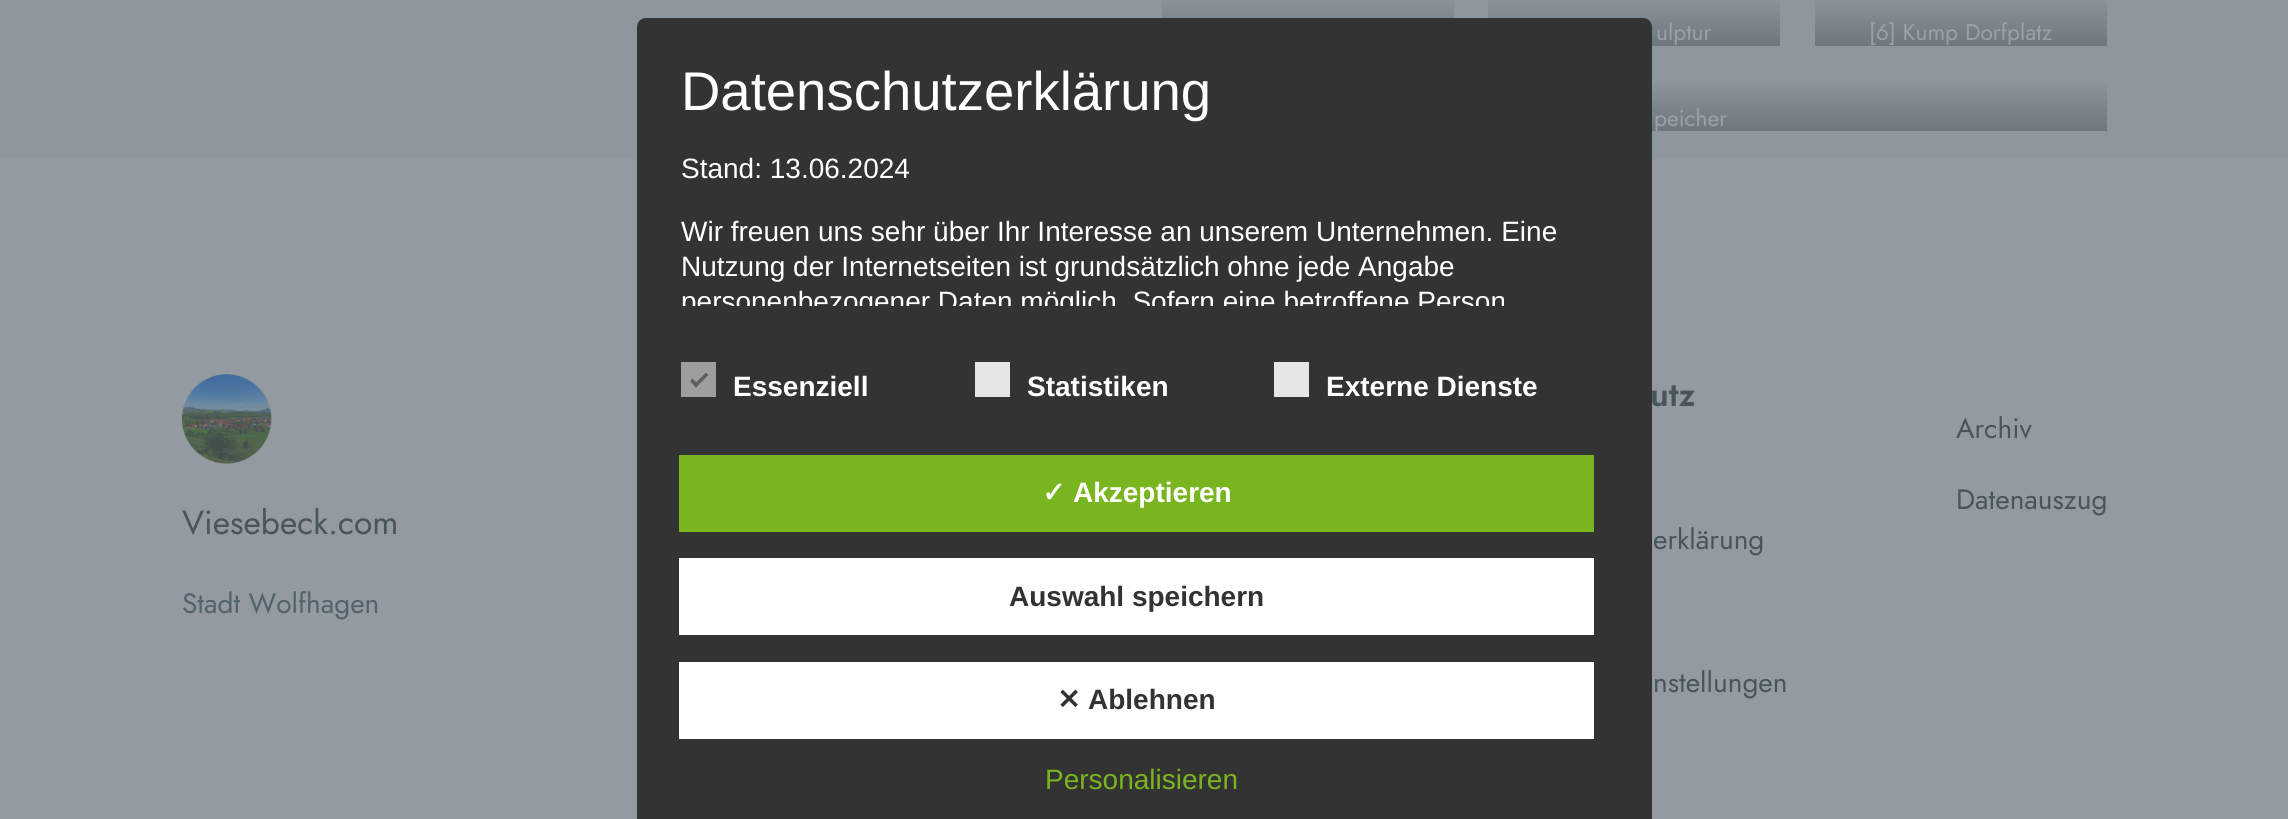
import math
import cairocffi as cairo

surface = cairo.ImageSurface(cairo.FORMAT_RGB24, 2288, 819)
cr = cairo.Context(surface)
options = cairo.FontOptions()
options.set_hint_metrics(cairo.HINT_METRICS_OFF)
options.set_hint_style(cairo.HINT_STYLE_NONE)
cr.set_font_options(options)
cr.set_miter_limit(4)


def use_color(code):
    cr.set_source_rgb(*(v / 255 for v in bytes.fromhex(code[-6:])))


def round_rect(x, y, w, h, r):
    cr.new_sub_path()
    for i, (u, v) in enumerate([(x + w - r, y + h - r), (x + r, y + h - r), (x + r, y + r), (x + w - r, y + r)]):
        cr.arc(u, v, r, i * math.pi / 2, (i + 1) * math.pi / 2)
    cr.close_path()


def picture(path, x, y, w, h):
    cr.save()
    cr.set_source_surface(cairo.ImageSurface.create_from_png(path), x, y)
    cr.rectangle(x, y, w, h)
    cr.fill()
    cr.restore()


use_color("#939ba1")
cr.paint()
use_color("#8e979e")
cr.rectangle(0, 0, 2288, 159)
cr.fill()
gradient = cairo.LinearGradient(1308, 46, 1308, -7)
gradient.add_color_stop_rgba(0, 0.431, 0.467, 0.49, 1)
gradient.add_color_stop_rgba(1, 0.557, 0.592, 0.62, 1)
cr.set_source(gradient)
cr.rectangle(1162, 0, 292, 18)
cr.fill()
gradient = cairo.LinearGradient(1634, 46, 1634, -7)
gradient.add_color_stop_rgba(0, 0.431, 0.467, 0.49, 1)
gradient.add_color_stop_rgba(1, 0.557, 0.592, 0.62, 1)
cr.set_source(gradient)
cr.rectangle(1488, 0, 292, 46)
cr.fill()
cr.select_font_face("Jost")
cr.set_font_size(22.75)
use_color("#9ba2a7")
cr.move_to(1656, 40)
cr.show_text("ulptur")
gradient = cairo.LinearGradient(1961, 46, 1961, -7)
gradient.add_color_stop_rgba(0, 0.431, 0.467, 0.49, 1)
gradient.add_color_stop_rgba(1, 0.557, 0.592, 0.62, 1)
cr.set_source(gradient)
cr.rectangle(1815, 0, 292, 46)
cr.fill()
use_color("#9ba2a7")
cr.move_to(1869, 40)
cr.show_text("[6] Kump Dorfplatz")
gradient = cairo.LinearGradient(1635, 131, 1635, 79)
gradient.add_color_stop_rgba(0, 0.431, 0.467, 0.49, 1)
gradient.add_color_stop_rgba(1, 0.557, 0.592, 0.62, 1)
cr.set_source(gradient)
cr.rectangle(1652, 83, 455, 48)
cr.fill()
use_color("#9ba2a7")
cr.move_to(1654, 126)
cr.show_text("peicher")
picture("img1.png", 182, 374, 90, 90)
cr.set_font_size(33.5)
use_color("#49555c")
cr.move_to(182, 534)
cr.show_text("Viesebeck.com")
cr.set_font_size(28)
use_color("#53636c")
cr.move_to(182, 613)
cr.show_text("Stadt Wolfhagen")
cr.select_font_face("Jost SemiBold")
cr.set_font_size(33.5)
use_color("#49555c")
cr.move_to(1650, 406)
cr.show_text("utz")
cr.select_font_face("Jost")
cr.set_font_size(28)
cr.move_to(1653, 549)
cr.show_text("erklärung")
cr.move_to(1653, 692)
cr.show_text("nstellungen")
cr.move_to(1956, 438)
cr.show_text("Archiv")
cr.move_to(1956, 509)
cr.show_text("Datenauszug")
use_color("#333333")
round_rect(637, 18, 1015, 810, 9)
cr.fill()
cr.select_font_face("Liberation Sans")
cr.set_font_size(54.5)
use_color("#ffffff")
cr.move_to(681, 110)
cr.show_text("Datenschutzerklärung")
cr.set_font_size(28)
cr.move_to(681, 178)
cr.show_text("Stand: 13.06.2024")
cr.move_to(681, 241)
cr.show_text("Wir freuen uns sehr über Ihr Interesse an unserem Unternehmen. Eine")
cr.move_to(681, 276)
cr.show_text("Nutzung der Internetseiten ist grundsätzlich ohne jede Angabe")
cr.save()
cr.rectangle(681, 61, 945, 245)
cr.clip()
cr.move_to(681, 311)
cr.show_text("personenbezogener Daten möglich. Sofern eine betroffene Person")
cr.restore()
use_color("#9e9e9e")
cr.rectangle(681, 362, 35, 35)
cr.fill()
use_color("#5e5e5e")
cr.new_path()
cr.move_to(706, 372.5)
cr.line_to(708.5, 375)
cr.line_to(696, 387.5)
cr.line_to(693.5, 385)
cr.close_path()
cr.fill()
cr.new_path()
cr.move_to(692.5, 378.5)
cr.line_to(698.5, 385)
cr.line_to(696, 387.5)
cr.line_to(690, 381)
cr.close_path()
cr.fill()
cr.select_font_face("Liberation Sans", cairo.FONT_SLANT_NORMAL, cairo.FONT_WEIGHT_BOLD)
use_color("#ffffff")
cr.move_to(733, 396)
cr.show_text("Essenziell")
use_color("#e6e6e6")
cr.rectangle(975, 362, 35, 35)
cr.fill()
use_color("#ffffff")
cr.move_to(1027, 396)
cr.show_text("Statistiken")
use_color("#e6e6e6")
cr.rectangle(1274, 362, 35, 35)
cr.fill()
use_color("#ffffff")
cr.move_to(1326, 396)
cr.show_text("Externe Dienste")
use_color("#79b51f")
cr.rectangle(679, 455, 915, 77)
cr.fill()
cr.select_font_face("DejaVu Sans", cairo.FONT_SLANT_NORMAL, cairo.FONT_WEIGHT_BOLD)
use_color("#ffffff")
cr.move_to(1042, 502)
cr.show_text("✓")
cr.select_font_face("Liberation Sans", cairo.FONT_SLANT_NORMAL, cairo.FONT_WEIGHT_BOLD)
cr.move_to(1073, 502)
cr.show_text("Akzeptieren")
cr.rectangle(679, 558, 915, 77)
cr.fill()
use_color("#333333")
cr.move_to(1009, 606)
cr.show_text("Auswahl speichern")
use_color("#ffffff")
cr.rectangle(679, 662, 915, 77)
cr.fill()
cr.select_font_face("DejaVu Sans", cairo.FONT_SLANT_NORMAL, cairo.FONT_WEIGHT_BOLD)
use_color("#333333")
cr.move_to(1057, 709)
cr.show_text("✕")
cr.select_font_face("Liberation Sans", cairo.FONT_SLANT_NORMAL, cairo.FONT_WEIGHT_BOLD)
cr.move_to(1088, 709)
cr.show_text("Ablehnen")
cr.select_font_face("Liberation Sans")
use_color("#79b51f")
cr.move_to(1045, 789)
cr.show_text("Personalisieren")
surface.write_to_png("result.png")
